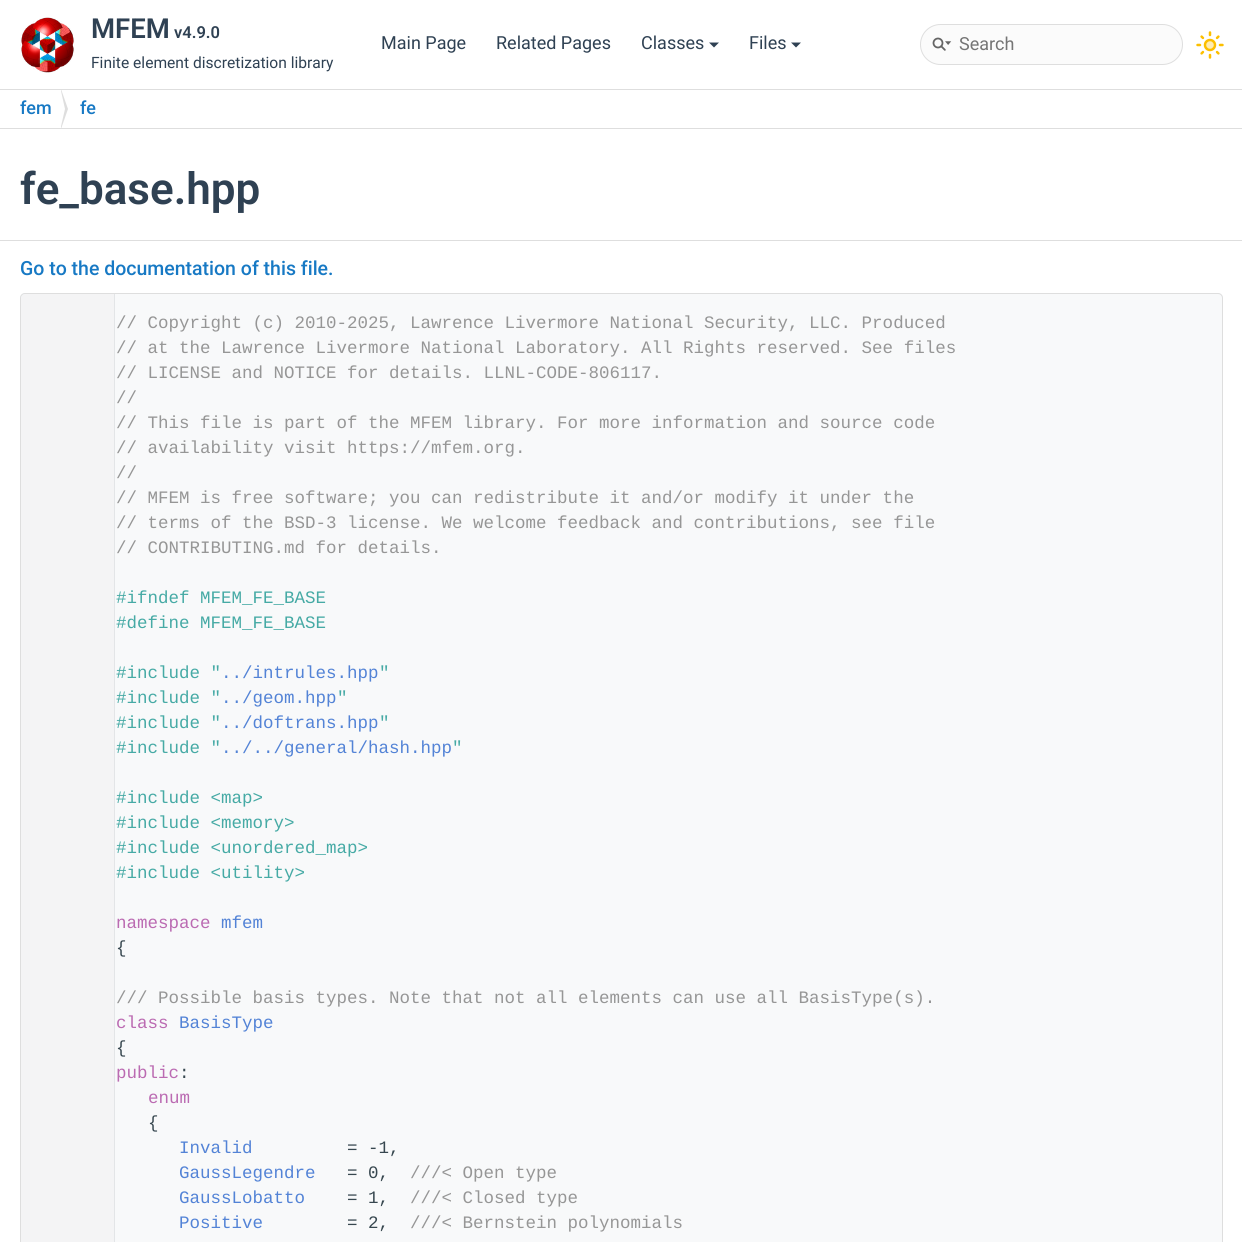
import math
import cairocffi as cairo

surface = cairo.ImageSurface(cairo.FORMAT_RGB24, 1242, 1242)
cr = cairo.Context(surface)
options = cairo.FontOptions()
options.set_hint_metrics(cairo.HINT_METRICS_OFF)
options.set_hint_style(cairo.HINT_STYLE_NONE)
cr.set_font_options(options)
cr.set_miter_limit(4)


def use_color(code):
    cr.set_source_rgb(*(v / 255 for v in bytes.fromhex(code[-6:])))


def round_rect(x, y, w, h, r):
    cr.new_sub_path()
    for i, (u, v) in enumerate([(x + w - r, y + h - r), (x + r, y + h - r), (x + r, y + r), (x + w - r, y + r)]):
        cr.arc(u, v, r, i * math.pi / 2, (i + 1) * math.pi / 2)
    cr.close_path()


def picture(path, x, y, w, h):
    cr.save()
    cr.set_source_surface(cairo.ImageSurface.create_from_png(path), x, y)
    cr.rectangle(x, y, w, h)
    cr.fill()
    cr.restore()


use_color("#ffffff")
cr.paint()
use_color("#dedede")
cr.rectangle(0, 128, 1242, 1)
cr.fill()
picture("img1.png", 20, 17, 55, 56)
cr.select_font_face("Roboto SemiBold")
cr.set_font_size(27.5)
use_color("#2f4153")
cr.move_to(91, 38)
cr.show_text("MFEM")
cr.set_font_size(16.5)
cr.move_to(174, 38)
cr.show_text("v4.9.0")
cr.select_font_face("Roboto")
cr.set_font_size(15.6)
cr.move_to(91, 68)
cr.show_text("Finite element discretization library")
cr.set_font_size(18)
cr.move_to(381, 49)
cr.show_text("Main Page")
cr.move_to(496, 49)
cr.show_text("Related Pages")
cr.move_to(641, 49)
cr.show_text("Classes")
cr.new_path()
cr.move_to(709, 42.5)
cr.line_to(719, 42.5)
cr.line_to(714, 47.5)
cr.close_path()
cr.fill()
cr.move_to(749, 49)
cr.show_text("Files")
cr.new_path()
cr.move_to(791, 42.5)
cr.line_to(801, 42.5)
cr.line_to(796, 47.5)
cr.close_path()
cr.fill()
use_color("#fbfbfb")
round_rect(920.5, 24.5, 262, 40, 20)
cr.fill_preserve()
use_color("#dedede")
cr.set_line_width(1)
cr.stroke()
picture("img2.png", 932, 37, 20, 14)
use_color("#757575")
cr.move_to(959, 50)
cr.show_text("Search")
picture("img3.png", 1196, 31, 28, 28)
use_color("#dedede")
cr.rectangle(0, 89, 1242, 1)
cr.fill()
cr.select_font_face("Roboto Medium")
use_color("#1779c4")
cr.move_to(20, 114)
cr.show_text("fem")
use_color("#dedede")
cr.new_path()
cr.move_to(61, 129)
cr.line_to(61, 89)
cr.line_to(68, 109)
cr.close_path()
cr.fill()
cr.save()
cr.rectangle(0, 90, 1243, 38)
cr.clip()
use_color("#ffffff")
cr.new_path()
cr.move_to(59, 135)
cr.line_to(59, 82)
cr.line_to(65, 109)
cr.close_path()
cr.fill()
cr.restore()
use_color("#1779c4")
cr.move_to(80, 114)
cr.show_text("fe")
use_color("#dedede")
cr.rectangle(0, 240, 1242, 1)
cr.fill()
cr.select_font_face("Roboto SemiBold")
cr.set_font_size(44)
use_color("#2f4153")
cr.move_to(20, 204)
cr.show_text("fe_base.hpp")
cr.select_font_face("Roboto Medium")
cr.set_font_size(19.5)
use_color("#1779c4")
cr.move_to(20, 275)
cr.show_text("Go to the documentation of this file.")
use_color("#f8f9fa")
cr.new_path()
cr.move_to(25, 293)
cr.line_to(1218, 293)
cr.curve_to(1221, 293, 1223, 295, 1223, 298)
cr.line_to(1223, 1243)
cr.line_to(20, 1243)
cr.line_to(20, 298)
cr.curve_to(20, 295, 22, 293, 25, 293)
cr.close_path()
cr.fill()
round_rect(20.5, 293.5, 1202, 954, 4.5)
use_color("#dedede")
cr.stroke()
use_color("#e3e5e7")
cr.new_path()
cr.move_to(25, 294)
cr.curve_to(23, 294, 21, 296, 21, 298)
cr.line_to(21, 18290)
cr.curve_to(21, 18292, 23, 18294, 25, 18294)
cr.line_to(115, 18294)
cr.line_to(115, 294)
cr.close_path()
cr.fill()
use_color("#f4f4f5")
cr.new_path()
cr.move_to(25, 294)
cr.curve_to(23, 294, 21, 296, 21, 298)
cr.line_to(21, 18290)
cr.curve_to(21, 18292, 23, 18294, 25, 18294)
cr.line_to(114, 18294)
cr.line_to(114, 294)
cr.close_path()
cr.fill()
cr.select_font_face("Liberation Mono")
cr.set_font_size(17.5)
use_color("#969696")
cr.move_to(116, 328)
cr.show_text("// Copyright (c) 2010-2025, Lawrence Livermore National Security, LLC. Produced")
cr.move_to(116, 353)
cr.show_text("// at the Lawrence Livermore National Laboratory. All Rights reserved. See files")
cr.move_to(116, 378)
cr.show_text("// LICENSE and NOTICE for details. LLNL-CODE-806117.")
cr.move_to(116, 403)
cr.show_text("//")
cr.move_to(116, 428)
cr.show_text("// This file is part of the MFEM library. For more information and source code")
cr.move_to(116, 453)
cr.show_text("// availability visit https://mfem.org.")
cr.move_to(116, 478)
cr.show_text("//")
cr.move_to(116, 503)
cr.show_text("// MFEM is free software; you can redistribute it and/or modify it under the")
cr.move_to(116, 528)
cr.show_text("// terms of the BSD-3 license. We welcome feedback and contributions, see file")
cr.move_to(116, 553)
cr.show_text("// CONTRIBUTING.md for details.")
use_color("#46aaa5")
cr.move_to(116, 603)
cr.show_text("#ifndef MFEM_FE_BASE")
cr.move_to(116, 628)
cr.show_text("#define MFEM_FE_BASE")
cr.move_to(116, 678)
cr.show_text("#include \"")
use_color("#5383d6")
cr.move_to(221, 678)
cr.show_text("../intrules.hpp")
use_color("#46aaa5")
cr.move_to(379, 678)
cr.show_text("\"")
cr.move_to(116, 703)
cr.show_text("#include \"")
use_color("#5383d6")
cr.move_to(221, 703)
cr.show_text("../geom.hpp")
use_color("#46aaa5")
cr.move_to(337, 703)
cr.show_text("\"")
cr.move_to(116, 728)
cr.show_text("#include \"")
use_color("#5383d6")
cr.move_to(221, 728)
cr.show_text("../doftrans.hpp")
use_color("#46aaa5")
cr.move_to(379, 728)
cr.show_text("\"")
cr.move_to(116, 753)
cr.show_text("#include \"")
use_color("#5383d6")
cr.move_to(221, 753)
cr.show_text("../../general/hash.hpp")
use_color("#46aaa5")
cr.move_to(452, 753)
cr.show_text("\"")
cr.move_to(116, 803)
cr.show_text("#include <map>")
cr.move_to(116, 828)
cr.show_text("#include <memory>")
cr.move_to(116, 853)
cr.show_text("#include <unordered_map>")
cr.move_to(116, 878)
cr.show_text("#include <utility>")
use_color("#bb6bb2")
cr.move_to(116, 928)
cr.show_text("namespace")
use_color("#5383d6")
cr.move_to(221, 928)
cr.show_text("mfem")
use_color("#37474f")
cr.move_to(116, 953)
cr.show_text("{")
use_color("#969696")
cr.move_to(116, 1003)
cr.show_text("/// Possible basis types. Note that not all elements can use all BasisType(s).")
use_color("#bb6bb2")
cr.move_to(116, 1028)
cr.show_text("class")
use_color("#5383d6")
cr.move_to(179, 1028)
cr.show_text("BasisType")
use_color("#37474f")
cr.move_to(116, 1053)
cr.show_text("{")
use_color("#bb6bb2")
cr.move_to(116, 1078)
cr.show_text("public")
use_color("#37474f")
cr.move_to(179, 1078)
cr.show_text(":")
use_color("#bb6bb2")
cr.move_to(148, 1103)
cr.show_text("enum")
use_color("#37474f")
cr.move_to(148, 1128)
cr.show_text("{")
use_color("#5383d6")
cr.move_to(179, 1153)
cr.show_text("Invalid")
use_color("#37474f")
cr.move_to(347, 1153)
cr.show_text("= -1,")
use_color("#5383d6")
cr.move_to(179, 1178)
cr.show_text("GaussLegendre")
use_color("#37474f")
cr.move_to(347, 1178)
cr.show_text("= 0,")
use_color("#969696")
cr.move_to(410, 1178)
cr.show_text("///< Open type")
use_color("#5383d6")
cr.move_to(179, 1203)
cr.show_text("GaussLobatto")
use_color("#37474f")
cr.move_to(347, 1203)
cr.show_text("= 1,")
use_color("#969696")
cr.move_to(410, 1203)
cr.show_text("///< Closed type")
use_color("#5383d6")
cr.move_to(179, 1228)
cr.show_text("Positive")
use_color("#37474f")
cr.move_to(347, 1228)
cr.show_text("= 2,")
use_color("#969696")
cr.move_to(410, 1228)
cr.show_text("///< Bernstein polynomials")
surface.write_to_png("result.png")
